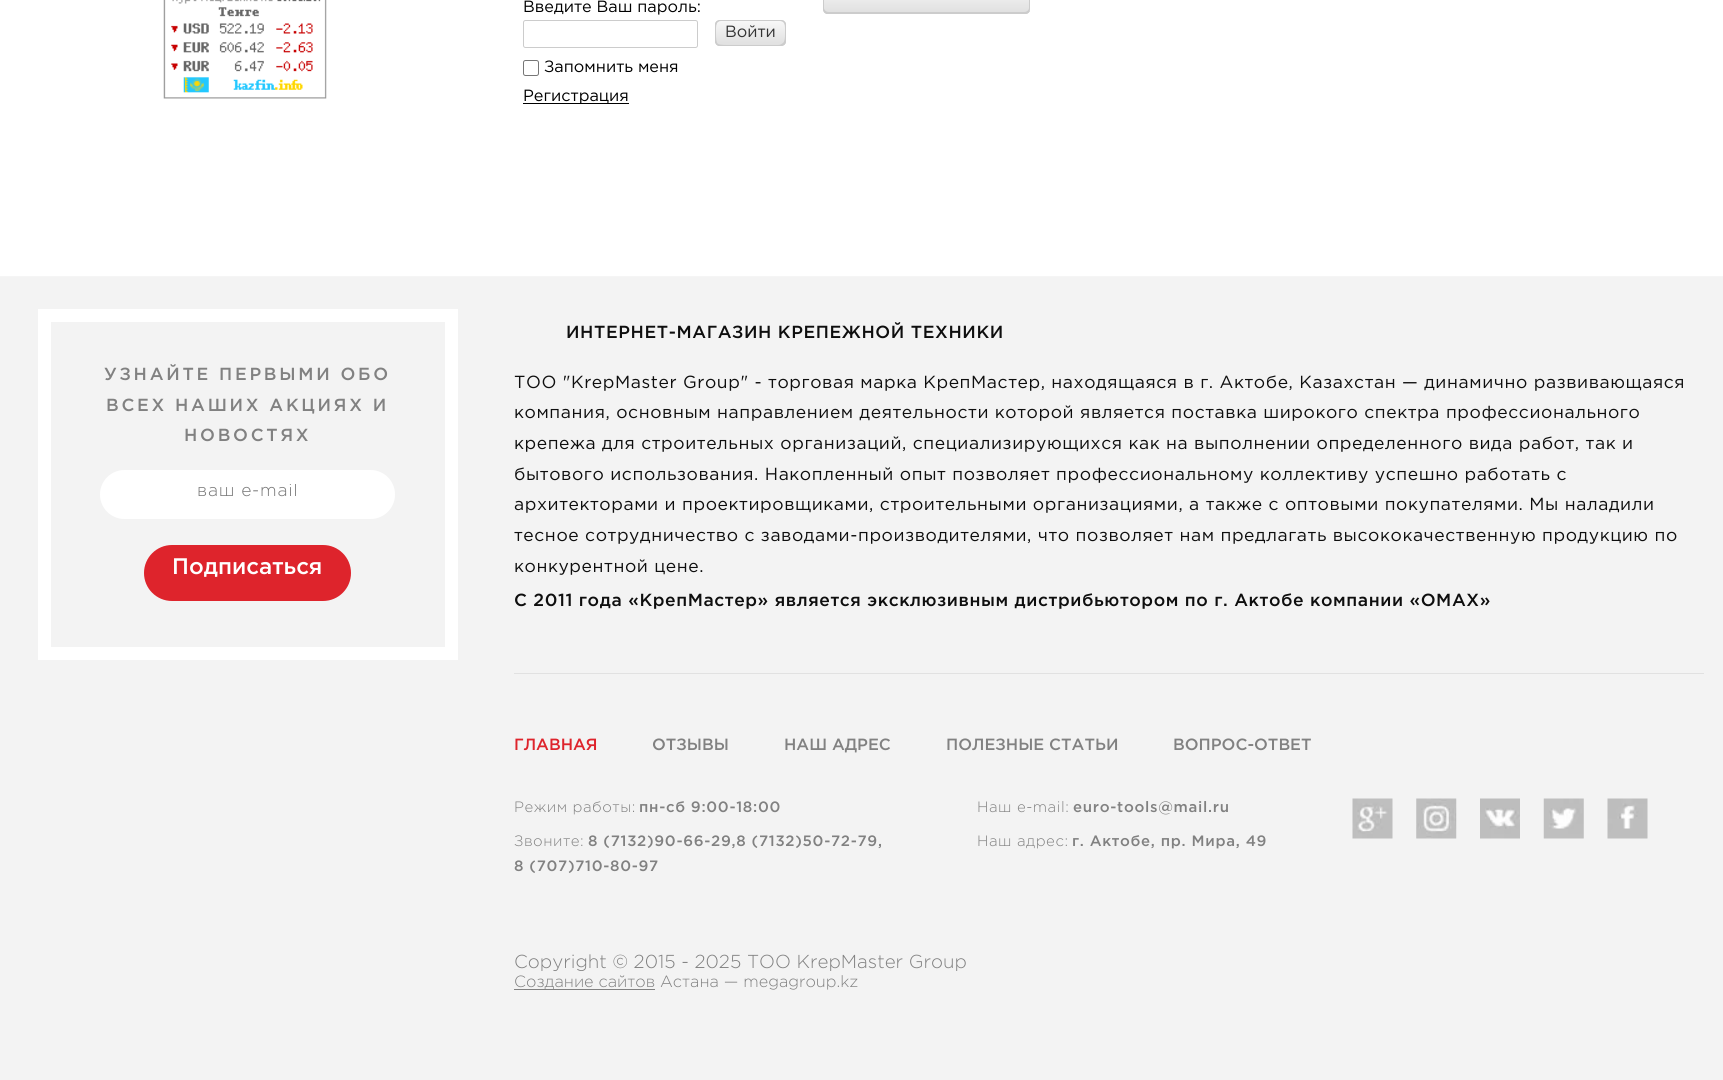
import math
import cairocffi as cairo

surface = cairo.ImageSurface(cairo.FORMAT_RGB24, 1723, 1080)
cr = cairo.Context(surface)
options = cairo.FontOptions()
options.set_hint_metrics(cairo.HINT_METRICS_OFF)
options.set_hint_style(cairo.HINT_STYLE_NONE)
cr.set_font_options(options)
cr.set_miter_limit(4)


def use_color(code):
    cr.set_source_rgb(*(v / 255 for v in bytes.fromhex(code[-6:])))


def spaced_text(x, y, s, letter, word):
    cr.move_to(x, y)
    for ch in s:
        cr.show_text(ch)
        cr.rel_move_to(letter + word * (ch == ' '), 0)


def round_rect(x, y, w, h, r):
    cr.new_sub_path()
    for i, (u, v) in enumerate([(x + w - r, y + h - r), (x + r, y + h - r), (x + r, y + r), (x + w - r, y + r)]):
        cr.arc(u, v, r, i * math.pi / 2, (i + 1) * math.pi / 2)
    cr.close_path()


def picture(path, x, y, w, h):
    cr.save()
    cr.set_source_surface(cairo.ImageSurface.create_from_png(path), x, y)
    cr.rectangle(x, y, w, h)
    cr.fill()
    cr.restore()


use_color("#ffffff")
cr.paint()
picture("img1.png", 163, 0, 164, 99)
cr.select_font_face("Gotham")
cr.set_font_size(16.25)
use_color("#000000")
cr.move_to(523, 12)
cr.show_text("Введите Ваш пароль:")
round_rect(523.5, 20.5, 174, 27, 2)
use_color("#cccccc")
cr.set_line_width(1)
cr.stroke()
gradient = cairo.LinearGradient(751, 20, 751, 46)
gradient.add_color_stop_rgba(0, 0.973, 0.973, 0.973, 1)
gradient.add_color_stop_rgba(1, 0.875, 0.875, 0.875, 1)
cr.set_source(gradient)
round_rect(715, 20, 71, 26, 5)
cr.fill()
use_color("#cccccc")
cr.new_path()
cr.move_to(718, 21)
cr.curve_to(716, 21, 715, 23, 715, 25)
cr.line_to(715, 41)
cr.curve_to(715, 44, 717, 46, 720, 46)
cr.line_to(781, 46)
cr.curve_to(782, 46, 784, 45, 785, 44)
cr.curve_to(781, 46, 752, 45, 752, 45)
cr.line_to(728, 45)
cr.curve_to(715, 45, 716, 44, 716, 32)
cr.curve_to(716, 28, 715, 24, 718, 21)
cr.close_path()
cr.fill()
cr.new_path()
cr.move_to(719, 21)
cr.line_to(776, 21)
cr.curve_to(786, 20, 785, 25, 785, 33)
cr.curve_to(785, 36, 786, 41, 784, 45)
cr.curve_to(785, 44, 786, 43, 786, 41)
cr.line_to(786, 25)
cr.curve_to(786, 22, 784, 20, 781, 20)
cr.line_to(720, 20)
cr.curve_to(719, 20, 717, 21, 716, 22)
cr.close_path()
cr.fill()
cr.new_path()
cr.move_to(716, 44)
cr.curve_to(717, 45, 718, 46, 720, 46)
cr.line_to(781, 46)
cr.curve_to(784, 46, 786, 44, 786, 41)
cr.line_to(786, 25)
cr.curve_to(786, 23, 785, 22, 784, 21)
cr.curve_to(786, 25, 785, 30, 785, 34)
cr.curve_to(785, 37, 785, 41, 783, 43)
cr.line_to(780, 45)
cr.line_to(729, 45)
cr.curve_to(725, 45, 720, 46, 716, 44)
cr.close_path()
cr.fill()
cr.new_path()
cr.move_to(721, 21)
cr.line_to(762, 21)
cr.curve_to(774, 21, 781, 20, 784, 21)
cr.curve_to(783, 20, 782, 20, 781, 20)
cr.line_to(720, 20)
cr.curve_to(717, 20, 715, 22, 715, 25)
cr.line_to(715, 41)
cr.curve_to(715, 42, 716, 44, 717, 45)
cr.curve_to(716, 41, 715, 27, 717, 23)
cr.curve_to(718, 22, 719, 21, 721, 21)
cr.close_path()
cr.fill()
use_color("#333333")
cr.move_to(725, 37)
cr.show_text("Войти")
round_rect(523.5, 60.5, 15, 15, 2)
use_color("#767676")
cr.stroke()
use_color("#000000")
cr.move_to(544, 72)
cr.show_text("Запомнить меня")
cr.rectangle(523, 103, 106, 1)
cr.fill()
cr.move_to(523, 101)
cr.show_text("Регистрация")
gradient = cairo.LinearGradient(926, -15, 926, 14)
gradient.add_color_stop_rgba(0, 0.973, 0.973, 0.973, 1)
gradient.add_color_stop_rgba(1, 0.875, 0.875, 0.875, 1)
cr.set_source(gradient)
round_rect(823, -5, 207, 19, 5)
cr.fill()
use_color("#cccccc")
cr.new_path()
cr.move_to(825, -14)
cr.curve_to(824, -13, 823, -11, 823, -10)
cr.line_to(823, 9)
cr.curve_to(823, 12, 825, 14, 828, 14)
cr.line_to(1025, 14)
cr.curve_to(1027, 14, 1029, 13, 1030, 11)
cr.curve_to(1029, 11, 1028, 12, 1026, 12)
cr.line_to(829, 12)
cr.curve_to(826, 12, 824, 10, 824, 8)
cr.line_to(824, -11)
cr.close_path()
cr.fill()
cr.new_path()
cr.move_to(824, 12)
cr.curve_to(825, 13, 826, 14, 828, 14)
cr.line_to(1025, 14)
cr.curve_to(1028, 14, 1030, 12, 1030, 9)
cr.line_to(1030, -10)
cr.curve_to(1030, -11, 1029, -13, 1028, -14)
cr.line_to(1029, -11)
cr.line_to(1029, 8)
cr.curve_to(1029, 10, 1027, 12, 1024, 12)
cr.line_to(826, 12)
cr.close_path()
cr.fill()
cr.new_path()
cr.move_to(829, -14)
cr.line_to(1026, -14)
cr.line_to(1029, -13)
cr.curve_to(1028, -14, 1026, -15, 1025, -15)
cr.line_to(828, -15)
cr.curve_to(825, -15, 823, -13, 823, -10)
cr.line_to(823, 9)
cr.curve_to(823, 10, 824, 12, 825, 13)
cr.curve_to(823, 10, 824, 4, 824, 0)
cr.curve_to(824, -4, 822, -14, 829, -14)
cr.close_path()
cr.fill()
use_color("#f3f3f3")
cr.rectangle(0, 277, 1723, 803)
cr.fill()
use_color("#f5f5f5")
cr.rectangle(0, 276, 1723, 1)
cr.fill()
cr.rectangle(44.5, 315.5, 407, 338)
use_color("#ffffff")
cr.set_line_width(13)
cr.stroke()
cr.select_font_face("Gotham Medium")
cr.set_font_size(17.5)
use_color("#818181")
spaced_text(104, 380, "УЗНАЙТЕ ПЕРВЫМИ ОБО", 2.75, 0)
spaced_text(106, 411, "ВСЕХ НАШИХ АКЦИЯХ И", 2.75, 0)
spaced_text(184, 441, "НОВОСТЯХ", 2.75, 0)
use_color("#ffffff")
round_rect(100, 470, 295, 49, 24.5)
cr.fill()
cr.save()
cr.rectangle(113, 484, 270, 16)
cr.clip()
cr.select_font_face("Gotham Light")
use_color("#757575")
spaced_text(197, 496, "ваш e-mail", 0.75, 0)
cr.restore()
use_color("#de242c")
round_rect(144, 545, 207, 56, 28)
cr.fill()
cr.set_font_size(22.5)
use_color("#ffffff")
cr.move_to(172, 574)
cr.show_text("Подписаться")
cr.set_font_size(17.5)
use_color("#0e0e0e")
spaced_text(566, 338, "ИНТЕРНЕТ-МАГАЗИН КРЕПЕЖНОЙ ТЕХНИКИ", 0.6, 0)
cr.select_font_face("Gotham")
spaced_text(514, 388, "ТОО \"KrepMaster Group\" - торговая марка КрепМастер, находящаяся в г. Актобе, Казахстан — динамично развивающаяся", 0.59, 0)
spaced_text(514, 418, "компания, основным направлением деятельности которой является поставка широкого спектра профессионального", 0.59, 0)
spaced_text(514, 449, "крепежа для строительных организаций, специализирующихся как на выполнении определенного вида работ, так и", 0.59, 0)
spaced_text(514, 480, "бытового использования. Накопленный опыт позволяет профессиональному коллективу успешно работать с", 0.59, 0)
spaced_text(514, 510, "архитекторами и проектировщиками, строительными организациями, а также с оптовыми покупателями. Мы наладили", 0.59, 0)
spaced_text(514, 541, "тесное сотрудничество с заводами-производителями, что позволяет нам предлагать высококачественную продукцию по", 0.59, 0)
spaced_text(514, 572, "конкурентной цене.", 0.59, 0)
cr.select_font_face("Gotham Medium")
spaced_text(514, 606, "С 2011 года «КрепМастер» является эксклюзивным дистрибьютором по г. Актобе компании «ОМАХ»", 0.59, 0)
use_color("#e1e1e1")
cr.rectangle(514, 673, 1190, 1)
cr.fill()
cr.set_font_size(16.25)
use_color("#de242c")
cr.move_to(514, 750)
cr.show_text("ГЛАВНАЯ")
use_color("#818181")
cr.move_to(652, 750)
cr.show_text("ОТЗЫВЫ")
cr.move_to(784, 750)
cr.show_text("НАШ АДРЕС")
cr.move_to(946, 750)
cr.show_text("ПОЛЕЗНЫЕ СТАТЬИ")
cr.move_to(1173, 750)
cr.show_text("ВОПРОС-ОТВЕТ")
cr.select_font_face("Gotham Light")
cr.set_font_size(15)
spaced_text(514, 812, "Режим работы:", 0.5, 0)
cr.select_font_face("Gotham Medium")
spaced_text(639, 812, "пн-сб 9:00-18:00", 0.7, 0)
cr.select_font_face("Gotham Light")
spaced_text(977, 812, "Наш e-mail:", 0.5, 0)
cr.select_font_face("Gotham Medium")
spaced_text(1073, 812, "euro-tools@mail.ru", 0.7, 0)
picture("img2.png", 1352, 798, 41, 41)
picture("img3.png", 1416, 798, 41, 41)
picture("img4.png", 1480, 798, 40, 41)
picture("img5.png", 1543, 798, 41, 41)
picture("img6.png", 1607, 798, 41, 41)
cr.select_font_face("Gotham Light")
spaced_text(514, 846, "Звоните:", 0.5, 0)
cr.select_font_face("Gotham Medium")
spaced_text(588, 846, "8 (7132)90-66-29,8 (7132)50-72-79,", 0.7, 0)
spaced_text(514, 871, "8 (707)710-80-97", 0.7, 0)
cr.select_font_face("Gotham Light")
spaced_text(977, 846, "Наш адрес:", 0.5, 0)
cr.select_font_face("Gotham Medium")
spaced_text(1072, 846, "г. Актобе, пр. Мира, 49", 0.7, 0)
cr.select_font_face("Gotham Light")
cr.set_font_size(18.75)
cr.move_to(514, 968)
cr.show_text("Copyright © 2015 - 2025 ТОО KrepMaster Group")
cr.rectangle(514, 989, 141, 1)
cr.fill()
cr.set_font_size(16.25)
cr.move_to(514, 987)
cr.show_text("Создание сайтов Астана — megagroup.kz")
surface.write_to_png("result.png")
